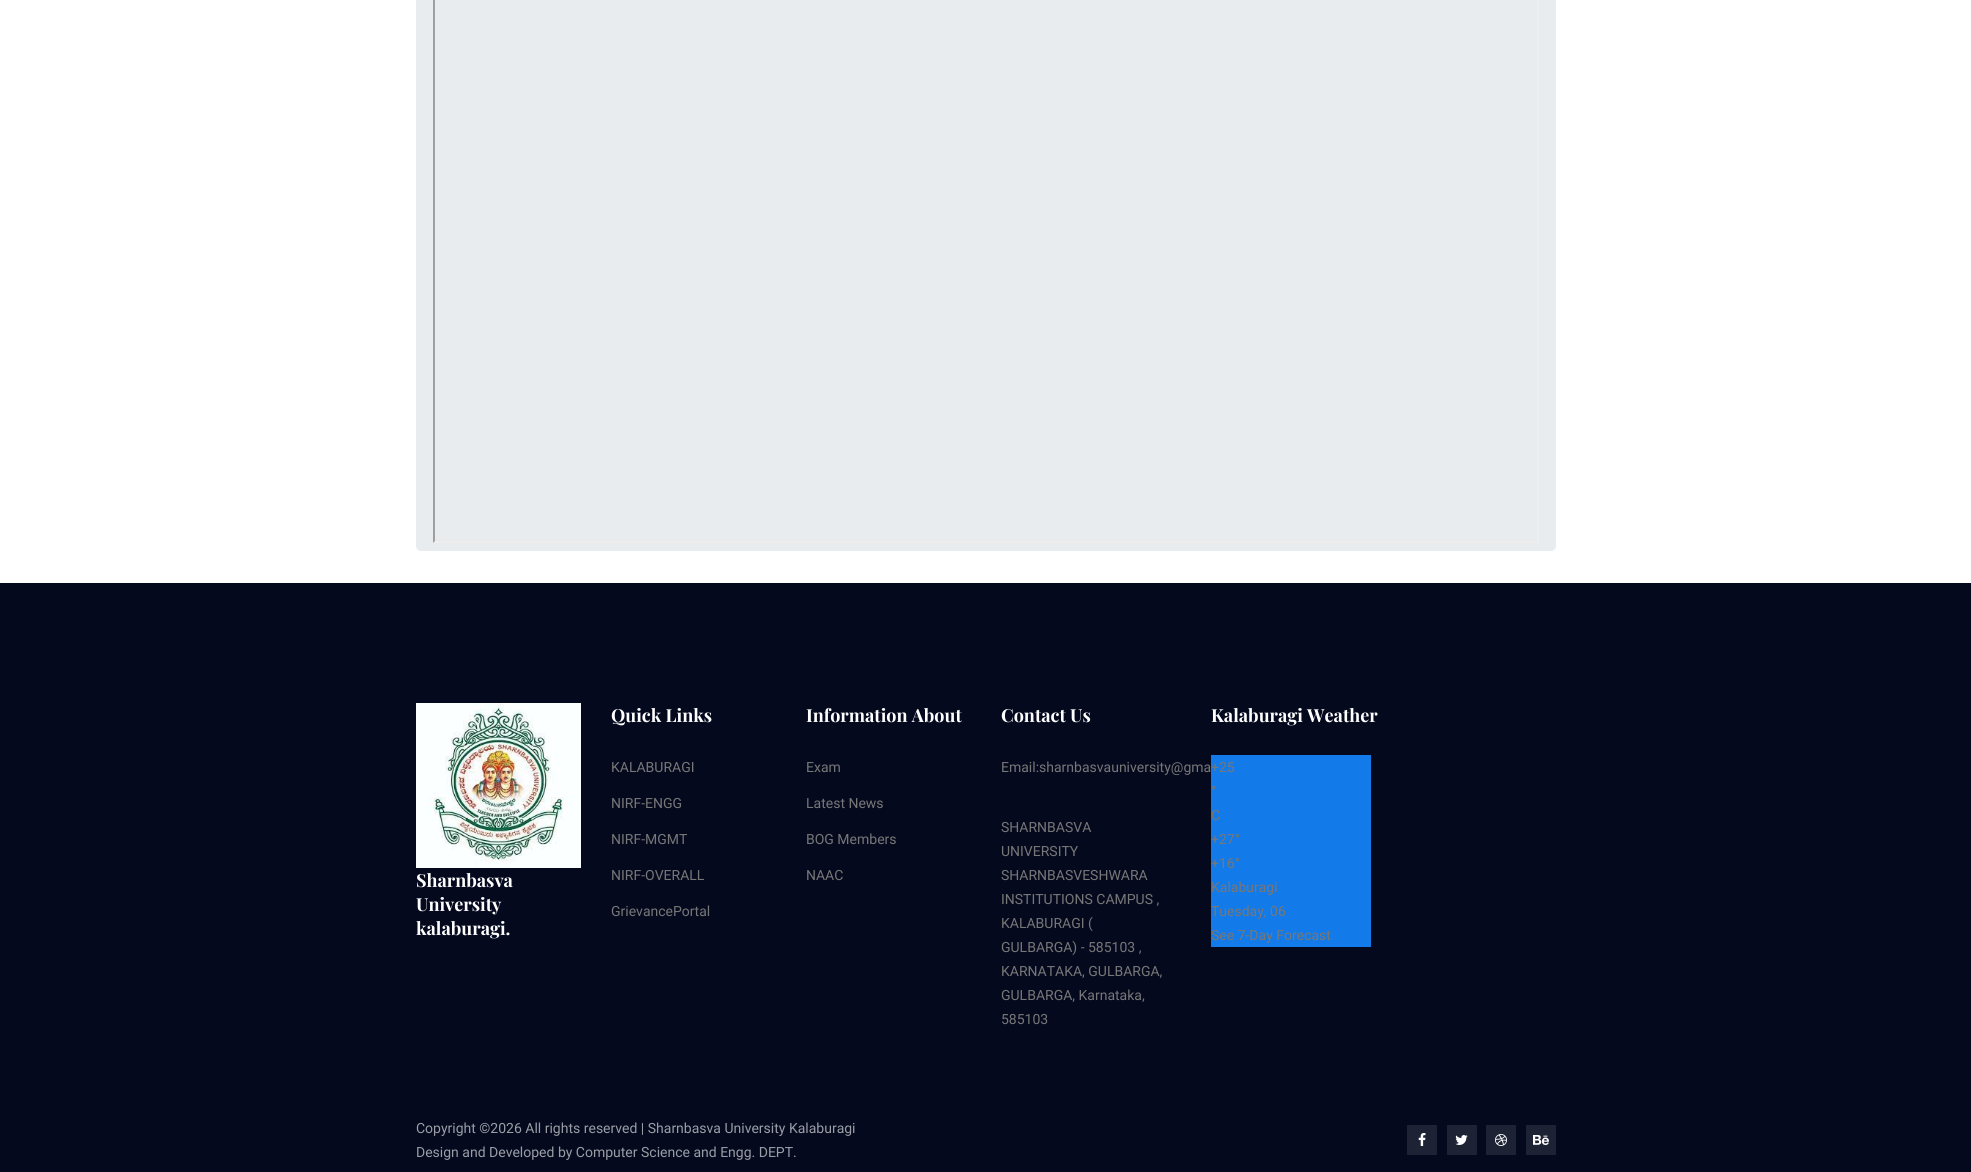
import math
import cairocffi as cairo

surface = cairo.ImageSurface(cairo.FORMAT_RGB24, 1971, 1172)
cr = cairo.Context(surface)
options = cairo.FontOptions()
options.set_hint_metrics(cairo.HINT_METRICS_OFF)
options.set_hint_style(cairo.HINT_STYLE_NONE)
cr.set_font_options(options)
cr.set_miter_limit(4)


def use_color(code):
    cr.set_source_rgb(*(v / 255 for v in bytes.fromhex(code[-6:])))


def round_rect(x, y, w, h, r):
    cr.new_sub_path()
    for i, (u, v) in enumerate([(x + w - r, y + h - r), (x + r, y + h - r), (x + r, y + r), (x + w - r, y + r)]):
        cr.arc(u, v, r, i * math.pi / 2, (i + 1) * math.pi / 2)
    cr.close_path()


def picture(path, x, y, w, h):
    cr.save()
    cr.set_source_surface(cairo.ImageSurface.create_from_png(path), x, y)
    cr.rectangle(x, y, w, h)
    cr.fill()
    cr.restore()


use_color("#ffffff")
cr.paint()
use_color("#e9ecef")
round_rect(416, -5, 1140, 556, 5)
cr.fill()
use_color("#eeeeee")
cr.new_path()
cr.move_to(1539, -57)
cr.line_to(1539, 543)
cr.line_to(1537, 541)
cr.line_to(1537, -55)
cr.close_path()
cr.fill()
cr.new_path()
cr.move_to(1539, 543)
cr.line_to(433, 543)
cr.line_to(435, 541)
cr.line_to(1537, 541)
cr.close_path()
cr.fill()
use_color("#9f9f9f")
cr.new_path()
cr.move_to(433, 543)
cr.line_to(433, -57)
cr.line_to(435, -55)
cr.line_to(435, 541)
cr.close_path()
cr.fill()
use_color("#04091e")
cr.rectangle(0, 583, 1971, 589)
cr.fill()
picture("img1.png", 416, 703, 165, 165)
cr.select_font_face("Playfair Display", cairo.FONT_SLANT_NORMAL, cairo.FONT_WEIGHT_BOLD)
cr.set_font_size(18)
use_color("#ffffff")
cr.move_to(416, 887)
cr.show_text("Sharnbasva")
cr.move_to(416, 911)
cr.show_text("University")
cr.move_to(416, 935)
cr.show_text("kalaburagi.")
cr.move_to(611, 722)
cr.show_text("Quick Links")
cr.select_font_face("Roboto")
cr.set_font_size(14)
use_color("#777777")
cr.move_to(611, 772)
cr.show_text("KALABURAGI")
cr.move_to(611, 808)
cr.show_text("NIRF-ENGG")
cr.move_to(611, 844)
cr.show_text("NIRF-MGMT")
cr.move_to(611, 880)
cr.show_text("NIRF-OVERALL")
cr.move_to(611, 916)
cr.show_text("GrievancePortal")
cr.select_font_face("Playfair Display", cairo.FONT_SLANT_NORMAL, cairo.FONT_WEIGHT_BOLD)
cr.set_font_size(18)
use_color("#ffffff")
cr.move_to(806, 722)
cr.show_text("Information About")
cr.select_font_face("Roboto")
cr.set_font_size(14)
use_color("#777777")
cr.move_to(806, 772)
cr.show_text("Exam")
cr.move_to(806, 808)
cr.show_text("Latest News")
cr.move_to(806, 844)
cr.show_text("BOG Members")
cr.move_to(806, 880)
cr.show_text("NAAC")
cr.select_font_face("Playfair Display", cairo.FONT_SLANT_NORMAL, cairo.FONT_WEIGHT_BOLD)
cr.set_font_size(18)
use_color("#ffffff")
cr.move_to(1001, 722)
cr.show_text("Contact Us")
cr.select_font_face("Roboto")
cr.set_font_size(14)
use_color("#777777")
cr.move_to(1001, 772)
cr.show_text("Email:sharnbasvauniversity@gma")
cr.move_to(1001, 832)
cr.show_text("SHARNBASVA")
cr.move_to(1001, 856)
cr.show_text("UNIVERSITY")
cr.move_to(1001, 880)
cr.show_text("SHARNBASVESHWARA")
cr.move_to(1001, 904)
cr.show_text("INSTITUTIONS CAMPUS ,")
cr.move_to(1001, 928)
cr.show_text("KALABURAGI (")
cr.move_to(1001, 952)
cr.show_text("GULBARGA) - 585103 ,")
cr.move_to(1001, 976)
cr.show_text("KARNATAKA, GULBARGA,")
cr.move_to(1001, 1000)
cr.show_text("GULBARGA, Karnataka,")
cr.move_to(1001, 1024)
cr.show_text("585103")
cr.select_font_face("Playfair Display", cairo.FONT_SLANT_NORMAL, cairo.FONT_WEIGHT_BOLD)
cr.set_font_size(18)
use_color("#ffffff")
cr.move_to(1211, 722)
cr.show_text("Kalaburagi Weather")
use_color("#137ae9")
cr.rectangle(1211, 755, 160, 192)
cr.fill()
cr.select_font_face("Roboto")
cr.set_font_size(14)
use_color("#777777")
cr.move_to(1211, 772)
cr.show_text("+25")
cr.move_to(1211, 796)
cr.show_text("°")
cr.move_to(1211, 820)
cr.show_text("C")
cr.move_to(1211, 844)
cr.show_text("+27°")
cr.move_to(1211, 868)
cr.show_text("+16°")
cr.move_to(1211, 892)
cr.show_text("Kalaburagi")
cr.move_to(1211, 916)
cr.show_text("Tuesday, 06")
cr.move_to(1211, 940)
cr.show_text("See 7-Day Forecast")
use_color("#9b9da5")
cr.move_to(416, 1133)
cr.show_text("Copyright ©2026 All rights reserved | Sharnbasva University Kalaburagi")
cr.move_to(416, 1157)
cr.show_text("Design and Developed by Computer Science and Engg. DEPT.")
use_color("#1e2235")
cr.rectangle(1407, 1125, 30, 30)
cr.fill()
picture("img2.png", 1418, 1133, 8, 13)
cr.rectangle(1447, 1125, 30, 30)
cr.fill()
picture("img3.png", 1455, 1135, 13, 10)
cr.rectangle(1486, 1125, 30, 30)
cr.fill()
picture("img4.png", 1495, 1134, 12, 12)
cr.rectangle(1526, 1125, 30, 30)
cr.fill()
picture("img5.png", 1533, 1135, 16, 10)
surface.write_to_png("result.png")
